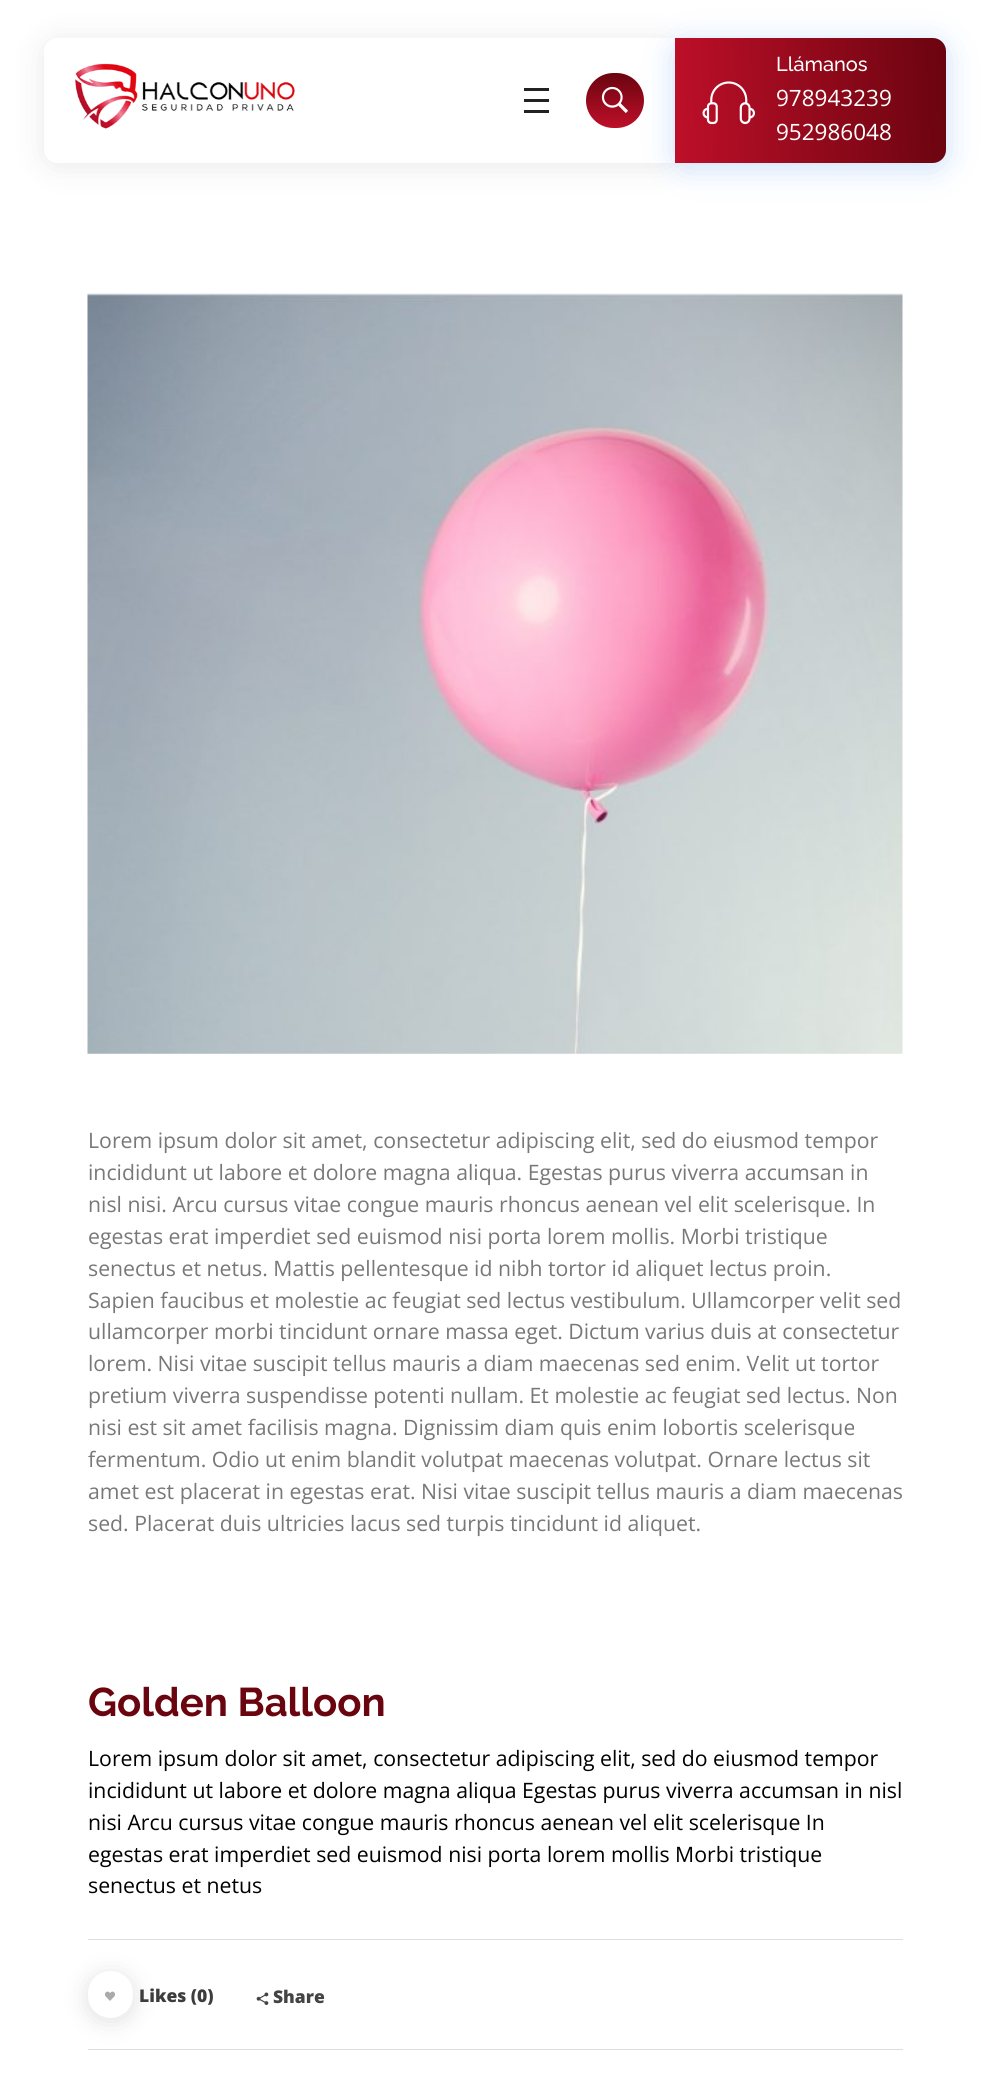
import math
import cairocffi as cairo

surface = cairo.ImageSurface(cairo.FORMAT_RGB24, 989, 2074)
cr = cairo.Context(surface)
options = cairo.FontOptions()
options.set_hint_metrics(cairo.HINT_METRICS_OFF)
options.set_hint_style(cairo.HINT_STYLE_NONE)
cr.set_font_options(options)
cr.set_miter_limit(4)


def use_color(code):
    cr.set_source_rgb(*(v / 255 for v in bytes.fromhex(code[-6:])))


def round_rect(x, y, w, h, r):
    cr.new_sub_path()
    for i, (u, v) in enumerate([(x + w - r, y + h - r), (x + r, y + h - r), (x + r, y + r), (x + w - r, y + r)]):
        cr.arc(u, v, r, i * math.pi / 2, (i + 1) * math.pi / 2)
    cr.close_path()


def shadow(x, y, w, h, r, blur, alpha):
    cr.push_group_with_content(cairo.CONTENT_ALPHA)
    cr.set_operator(cairo.OPERATOR_SOURCE)
    for i in range(15, -16, -2):
        e = blur * i / 6
        if min(w, h) + 2 * e > 0:
            cr.set_source_rgba(0, 0, 0, alpha * math.erfc((i - 1) / 8.5) / 2)
            round_rect(x - e, y - e, w + 2 * e, h + 2 * e, max(0, min(r + e + blur * .6, min(w, h) / 2 + e)))
            cr.fill()
    cr.mask(cr.pop_group())


def picture(path, x, y, w, h):
    cr.save()
    cr.set_source_surface(cairo.ImageSurface.create_from_png(path), x, y)
    cr.rectangle(x, y, w, h)
    cr.fill()
    cr.restore()


use_color("#ffffff")
cr.paint()
use_color("#000000")
shadow(44, 41, 631, 125, 13, 15.5, 0.09)
use_color("#ffffff")
cr.new_path()
cr.move_to(57, 38)
cr.line_to(675, 38)
cr.line_to(675, 163)
cr.line_to(57, 163)
cr.curve_to(50, 163, 44, 157, 44, 150)
cr.line_to(44, 51)
cr.curve_to(44, 44, 50, 38, 57, 38)
cr.close_path()
cr.fill()
picture("img1.png", 75, 63, 220, 66)
use_color("#222222")
cr.rectangle(524, 88, 25, 3)
cr.fill()
cr.rectangle(524, 99, 25, 3)
cr.fill()
cr.rectangle(524, 110, 25, 3)
cr.fill()
use_color("#005ae9")
shadow(675, 43, 271, 125, 13, 15.5, 0.2)
gradient = cairo.LinearGradient(615, 73, 615, 128)
gradient.add_color_stop_rgba(0, 0.416, 0.016, 0.059, 1)
gradient.add_color_stop_rgba(1, 0.745, 0.059, 0.161, 1)
cr.set_source(gradient)
round_rect(586, 73, 58, 55, 27.5)
cr.fill()
picture("img2.png", 601, 86, 27, 27)
gradient = cairo.LinearGradient(949, 93, 672, 107)
gradient.add_color_stop_rgba(0, 0.416, 0.016, 0.059, 1)
gradient.add_color_stop_rgba(1, 0.745, 0.059, 0.161, 1)
cr.set_source(gradient)
cr.new_path()
cr.move_to(675, 38)
cr.line_to(933, 38)
cr.curve_to(940, 38, 946, 44, 946, 51)
cr.line_to(946, 150)
cr.curve_to(946, 157, 940, 163, 933, 163)
cr.line_to(675, 163)
cr.close_path()
cr.fill()
picture("img3.png", 702, 81, 53, 44)
cr.select_font_face("Raleway Medium")
cr.set_font_size(20)
use_color("#ffffff")
cr.move_to(776, 71)
cr.show_text("Llámanos")
cr.select_font_face("Open Sans")
cr.set_font_size(22.5)
cr.move_to(776, 106)
cr.show_text("978943239")
cr.move_to(776, 140)
cr.show_text("952986048")
picture("img4.png", 87, 293, 816, 761)
cr.set_font_size(21.25)
use_color("#787878")
cr.move_to(88, 1148)
cr.show_text("Lorem ipsum dolor sit amet, consectetur adipiscing elit, sed do eiusmod tempor")
cr.move_to(88, 1180)
cr.show_text("incididunt ut labore et dolore magna aliqua. Egestas purus viverra accumsan in")
cr.move_to(88, 1212)
cr.show_text("nisl nisi. Arcu cursus vitae congue mauris rhoncus aenean vel elit scelerisque. In")
cr.move_to(88, 1244)
cr.show_text("egestas erat imperdiet sed euismod nisi porta lorem mollis. Morbi tristique")
cr.move_to(88, 1276)
cr.show_text("senectus et netus. Mattis pellentesque id nibh tortor id aliquet lectus proin.")
cr.move_to(88, 1308)
cr.show_text("Sapien faucibus et molestie ac feugiat sed lectus vestibulum. Ullamcorper velit sed")
cr.move_to(88, 1339)
cr.show_text("ullamcorper morbi tincidunt ornare massa eget. Dictum varius duis at consectetur")
cr.move_to(88, 1371)
cr.show_text("lorem. Nisi vitae suscipit tellus mauris a diam maecenas sed enim. Velit ut tortor")
cr.move_to(88, 1403)
cr.show_text("pretium viverra suspendisse potenti nullam. Et molestie ac feugiat sed lectus. Non")
cr.move_to(88, 1435)
cr.show_text("nisi est sit amet facilisis magna. Dignissim diam quis enim lobortis scelerisque")
cr.move_to(88, 1467)
cr.show_text("fermentum. Odio ut enim blandit volutpat maecenas volutpat. Ornare lectus sit")
cr.move_to(88, 1499)
cr.show_text("amet est placerat in egestas erat. Nisi vitae suscipit tellus mauris a diam maecenas")
cr.move_to(88, 1531)
cr.show_text("sed. Placerat duis ultricies lacus sed turpis tincidunt id aliquet.")
cr.select_font_face("Raleway", cairo.FONT_SLANT_NORMAL, cairo.FONT_WEIGHT_BOLD)
cr.set_font_size(40)
use_color("#6a040f")
cr.move_to(88, 1716)
cr.show_text("Golden Balloon")
cr.select_font_face("Open Sans")
cr.set_font_size(21.25)
use_color("#000000")
cr.move_to(88, 1766)
cr.show_text("Lorem ipsum dolor sit amet, consectetur adipiscing elit, sed do eiusmod tempor")
cr.move_to(88, 1798)
cr.show_text("incididunt ut labore et dolore magna aliqua Egestas purus viverra accumsan in nisl")
cr.move_to(88, 1830)
cr.show_text("nisi Arcu cursus vitae congue mauris rhoncus aenean vel elit scelerisque In")
cr.move_to(88, 1862)
cr.show_text("egestas erat imperdiet sed euismod nisi porta lorem mollis Morbi tristique")
cr.move_to(88, 1893)
cr.show_text("senectus et netus")
use_color("#dedede")
cr.rectangle(88, 1939, 815, 1)
cr.fill()
cr.rectangle(88, 2049, 815, 1)
cr.fill()
use_color("#000000")
shadow(88, 1975, 45, 46, 22.5, 12.5, 0.12)
use_color("#ffffff")
round_rect(88, 1971, 45, 47, 22.5)
cr.fill()
picture("img5.png", 105, 1991, 10, 10)
cr.select_font_face("Open Sans ExtraBold")
cr.set_font_size(17.5)
use_color("#3d3d3d")
cr.move_to(139, 2002)
cr.show_text("Likes (0)")
picture("img6.png", 256, 1992, 13, 13)
use_color("#444444")
cr.move_to(273, 2003)
cr.show_text("Share")
surface.write_to_png("result.png")
